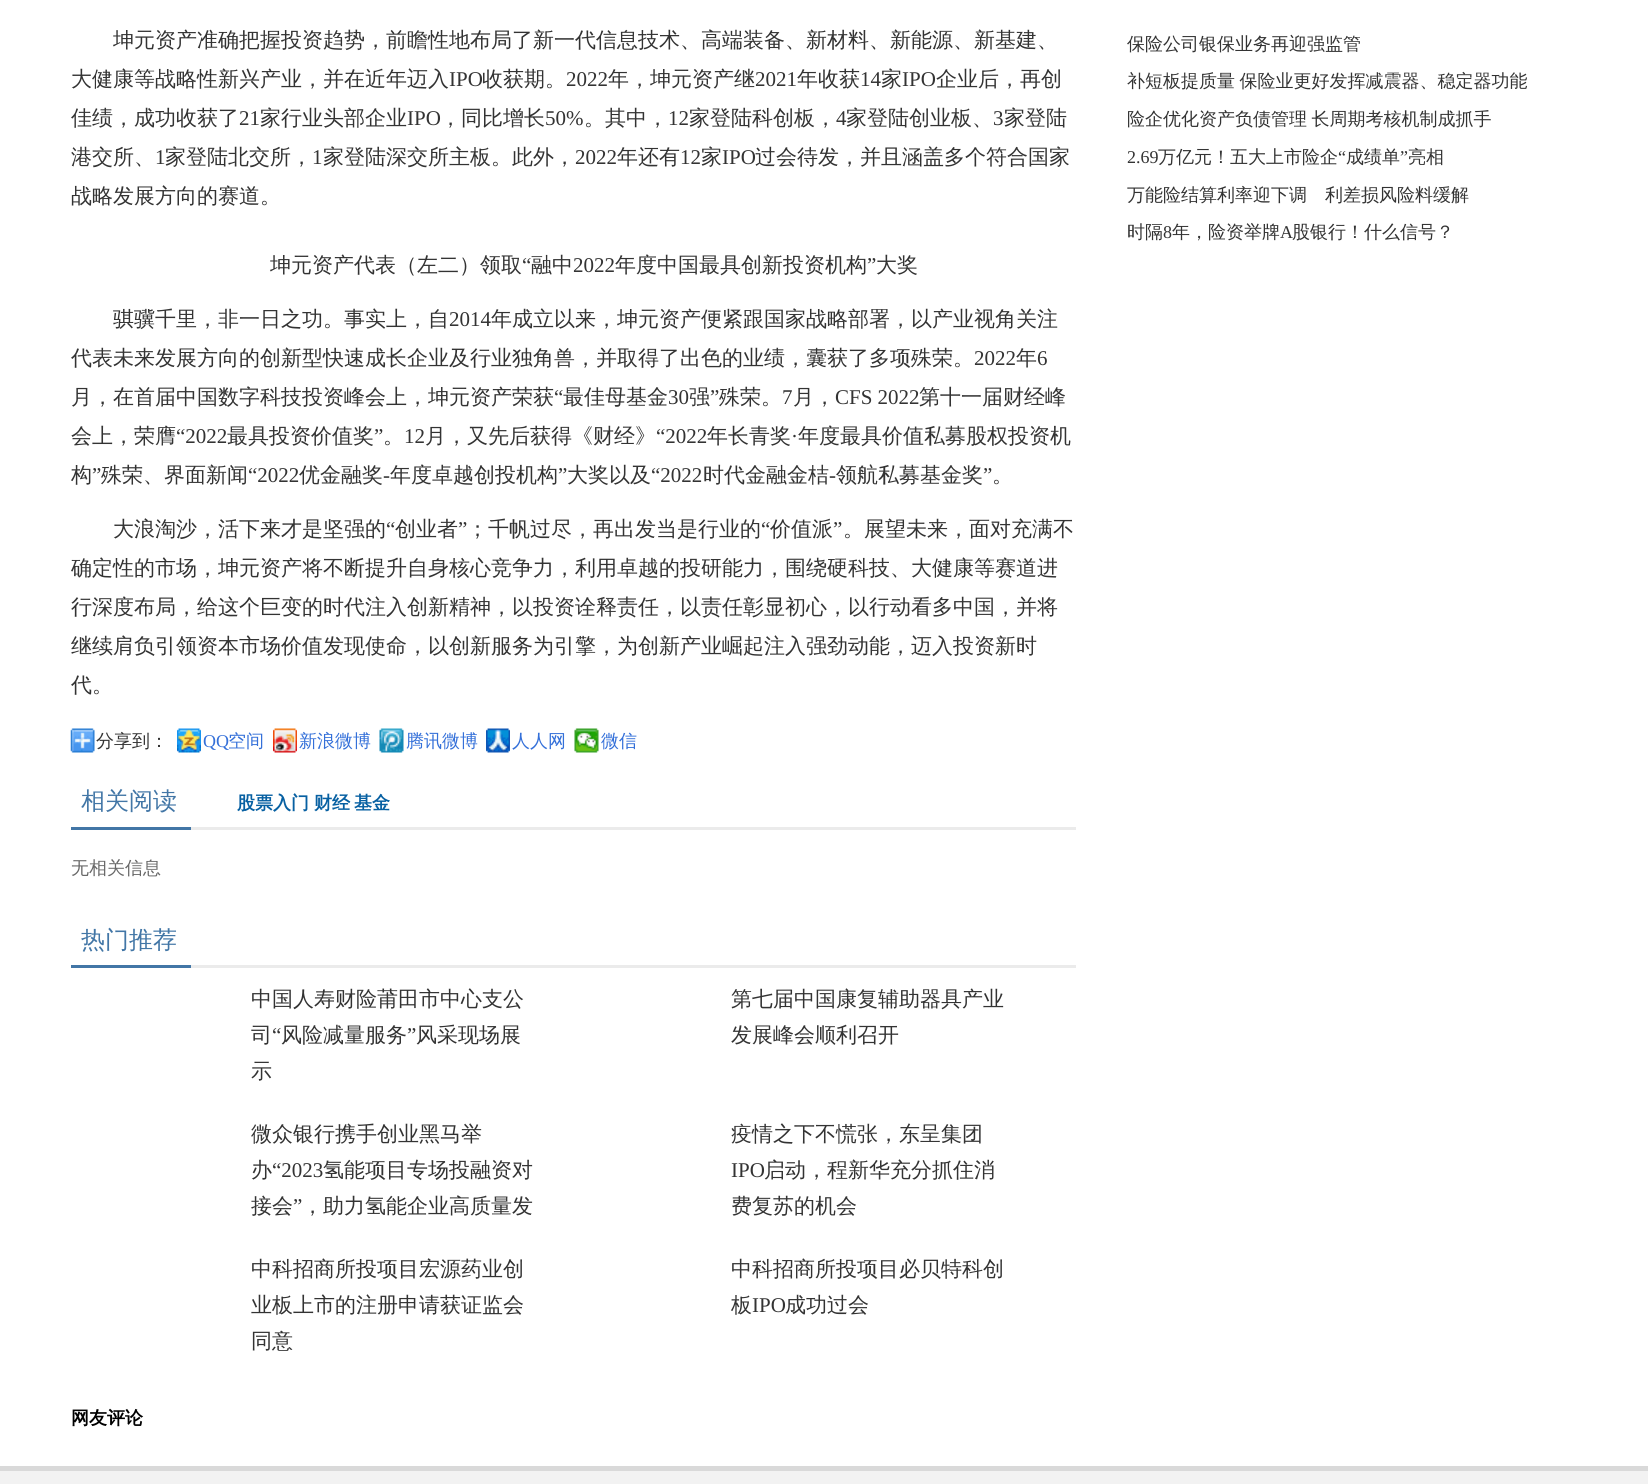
import math
import cairocffi as cairo

surface = cairo.ImageSurface(cairo.FORMAT_RGB24, 1648, 1484)
cr = cairo.Context(surface)
options = cairo.FontOptions()
options.set_hint_metrics(cairo.HINT_METRICS_OFF)
options.set_hint_style(cairo.HINT_STYLE_NONE)
cr.set_font_options(options)
cr.set_miter_limit(4)


def use_color(code):
    cr.set_source_rgb(*(v / 255 for v in bytes.fromhex(code[-6:])))


def spaced_text(x, y, s, letter, word):
    cr.move_to(x, y)
    for ch in s:
        cr.show_text(ch)
        cr.rel_move_to(letter + word * (ch == ' '), 0)


def picture(path, x, y, w, h):
    cr.save()
    cr.set_source_surface(cairo.ImageSurface.create_from_png(path), x, y)
    cr.rectangle(x, y, w, h)
    cr.fill()
    cr.restore()


use_color("#ffffff")
cr.paint()
cr.select_font_face("WenQuanYi Zen Hei Medium")
cr.set_font_size(21)
use_color("#333333")
cr.move_to(113, 47)
cr.show_text("坤元资产准确把握投资趋势，前瞻性地布局了新一代信息技术、高端装备、新材料、新能源、新基建、")
cr.move_to(71, 86)
cr.show_text("大健康等战略性新兴产业，并在近年迈入")
cr.select_font_face("Liberation Serif")
cr.move_to(449, 86)
cr.show_text("IPO")
cr.select_font_face("WenQuanYi Zen Hei Medium")
cr.move_to(482, 86)
cr.show_text("收获期。")
cr.select_font_face("Liberation Serif")
cr.move_to(566, 86)
cr.show_text("2022")
cr.select_font_face("WenQuanYi Zen Hei Medium")
cr.move_to(608, 86)
cr.show_text("年，坤元资产继")
cr.select_font_face("Liberation Serif")
cr.move_to(755, 86)
cr.show_text("2021")
cr.select_font_face("WenQuanYi Zen Hei Medium")
cr.move_to(797, 86)
cr.show_text("年收获")
cr.select_font_face("Liberation Serif")
cr.move_to(860, 86)
cr.show_text("14")
cr.select_font_face("WenQuanYi Zen Hei Medium")
cr.move_to(881, 86)
cr.show_text("家")
cr.select_font_face("Liberation Serif")
cr.move_to(902, 86)
cr.show_text("IPO")
cr.select_font_face("WenQuanYi Zen Hei Medium")
cr.move_to(936, 86)
cr.show_text("企业后，再创")
cr.move_to(71, 125)
cr.show_text("佳绩，成功收获了")
cr.select_font_face("Liberation Serif")
cr.move_to(239, 125)
cr.show_text("21")
cr.select_font_face("WenQuanYi Zen Hei Medium")
cr.move_to(260, 125)
cr.show_text("家行业头部企业")
cr.select_font_face("Liberation Serif")
cr.move_to(407, 125)
cr.show_text("IPO")
cr.select_font_face("WenQuanYi Zen Hei Medium")
cr.move_to(440, 125)
cr.show_text("，同比增长")
cr.select_font_face("Liberation Serif")
cr.move_to(545, 125)
cr.show_text("50%")
cr.select_font_face("WenQuanYi Zen Hei Medium")
cr.move_to(584, 125)
cr.show_text("。其中，")
cr.select_font_face("Liberation Serif")
cr.move_to(668, 125)
cr.show_text("12")
cr.select_font_face("WenQuanYi Zen Hei Medium")
cr.move_to(689, 125)
cr.show_text("家登陆科创板，")
cr.select_font_face("Liberation Serif")
cr.move_to(836, 125)
cr.show_text("4")
cr.select_font_face("WenQuanYi Zen Hei Medium")
cr.move_to(846, 125)
cr.show_text("家登陆创业板、")
cr.select_font_face("Liberation Serif")
cr.move_to(993, 125)
cr.show_text("3")
cr.select_font_face("WenQuanYi Zen Hei Medium")
cr.move_to(1004, 125)
cr.show_text("家登陆")
cr.move_to(71, 164)
cr.show_text("港交所、")
cr.select_font_face("Liberation Serif")
cr.move_to(155, 164)
cr.show_text("1")
cr.select_font_face("WenQuanYi Zen Hei Medium")
cr.move_to(165, 164)
cr.show_text("家登陆北交所，")
cr.select_font_face("Liberation Serif")
cr.move_to(312, 164)
cr.show_text("1")
cr.select_font_face("WenQuanYi Zen Hei Medium")
cr.move_to(323, 164)
cr.show_text("家登陆深交所主板。此外，")
cr.select_font_face("Liberation Serif")
cr.move_to(575, 164)
cr.show_text("2022")
cr.select_font_face("WenQuanYi Zen Hei Medium")
cr.move_to(617, 164)
cr.show_text("年还有")
cr.select_font_face("Liberation Serif")
cr.move_to(680, 164)
cr.show_text("12")
cr.select_font_face("WenQuanYi Zen Hei Medium")
cr.move_to(701, 164)
cr.show_text("家")
cr.select_font_face("Liberation Serif")
cr.move_to(722, 164)
cr.show_text("IPO")
cr.select_font_face("WenQuanYi Zen Hei Medium")
cr.move_to(755, 164)
cr.show_text("过会待发，并且涵盖多个符合国家")
cr.move_to(71, 203)
cr.show_text("战略发展方向的赛道。")
cr.move_to(270, 272)
cr.show_text("坤元资产代表（左二）领取")
cr.select_font_face("Liberation Serif")
cr.move_to(522, 272)
cr.show_text("“")
cr.select_font_face("WenQuanYi Zen Hei Medium")
cr.move_to(531, 272)
cr.show_text("融中")
cr.select_font_face("Liberation Serif")
cr.move_to(573, 272)
cr.show_text("2022")
cr.select_font_face("WenQuanYi Zen Hei Medium")
cr.move_to(615, 272)
cr.show_text("年度中国最具创新投资机构")
cr.select_font_face("Liberation Serif")
cr.move_to(867, 272)
cr.show_text("”")
cr.select_font_face("WenQuanYi Zen Hei Medium")
cr.move_to(876, 272)
cr.show_text("大奖")
cr.move_to(113, 326)
cr.show_text("骐骥千里，非一日之功。事实上，自")
cr.select_font_face("Liberation Serif")
cr.move_to(449, 326)
cr.show_text("2014")
cr.select_font_face("WenQuanYi Zen Hei Medium")
cr.move_to(491, 326)
cr.show_text("年成立以来，坤元资产便紧跟国家战略部署，以产业视角关注")
cr.move_to(71, 365)
cr.show_text("代表未来发展方向的创新型快速成长企业及行业独角兽，并取得了出色的业绩，囊获了多项殊荣。")
cr.select_font_face("Liberation Serif")
cr.move_to(974, 365)
cr.show_text("2022")
cr.select_font_face("WenQuanYi Zen Hei Medium")
cr.move_to(1016, 365)
cr.show_text("年")
cr.select_font_face("Liberation Serif")
cr.move_to(1037, 365)
cr.show_text("6")
cr.select_font_face("WenQuanYi Zen Hei Medium")
cr.move_to(71, 404)
cr.show_text("月，在首届中国数字科技投资峰会上，坤元资产荣获")
cr.select_font_face("Liberation Serif")
cr.move_to(554, 404)
cr.show_text("“")
cr.select_font_face("WenQuanYi Zen Hei Medium")
cr.move_to(563, 404)
cr.show_text("最佳母基金")
cr.select_font_face("Liberation Serif")
cr.move_to(668, 404)
cr.show_text("30")
cr.select_font_face("WenQuanYi Zen Hei Medium")
cr.move_to(689, 404)
cr.show_text("强")
cr.select_font_face("Liberation Serif")
cr.move_to(710, 404)
cr.show_text("”")
cr.select_font_face("WenQuanYi Zen Hei Medium")
cr.move_to(719, 404)
cr.show_text("殊荣。")
cr.select_font_face("Liberation Serif")
cr.move_to(782, 404)
cr.show_text("7")
cr.select_font_face("WenQuanYi Zen Hei Medium")
cr.move_to(793, 404)
cr.show_text("月，")
cr.select_font_face("Liberation Serif")
cr.move_to(835, 404)
cr.show_text("CFS 2022")
cr.select_font_face("WenQuanYi Zen Hei Medium")
cr.move_to(919, 404)
cr.show_text("第十一届财经峰")
cr.move_to(71, 443)
cr.show_text("会上，荣膺")
cr.select_font_face("Liberation Serif")
cr.move_to(176, 443)
cr.show_text("“2022")
cr.select_font_face("WenQuanYi Zen Hei Medium")
cr.move_to(227, 443)
cr.show_text("最具投资价值奖")
cr.select_font_face("Liberation Serif")
cr.move_to(374, 443)
cr.show_text("”")
cr.move_to(404, 443)
cr.show_text("12")
cr.select_font_face("WenQuanYi Zen Hei Medium")
cr.move_to(425, 443)
cr.show_text("月，又先后获得《财经》")
cr.select_font_face("Liberation Serif")
cr.move_to(656, 443)
cr.show_text("“2022")
cr.select_font_face("WenQuanYi Zen Hei Medium")
cr.move_to(707, 443)
cr.show_text("年长青奖")
cr.select_font_face("Liberation Serif")
cr.move_to(791, 443)
cr.show_text("·")
cr.select_font_face("WenQuanYi Zen Hei Medium")
cr.move_to(798, 443)
cr.show_text("年度最具价值私募股权投资机")
cr.move_to(383, 443)
cr.show_text("。")
cr.move_to(71, 482)
cr.show_text("构")
cr.select_font_face("Liberation Serif")
cr.move_to(92, 482)
cr.show_text("”")
cr.select_font_face("WenQuanYi Zen Hei Medium")
cr.move_to(101, 482)
cr.show_text("殊荣、界面新闻")
cr.select_font_face("Liberation Serif")
cr.move_to(248, 482)
cr.show_text("“2022")
cr.select_font_face("WenQuanYi Zen Hei Medium")
cr.move_to(299, 482)
cr.show_text("优金融奖")
cr.move_to(390, 482)
cr.show_text("年度卓越创投机构")
cr.select_font_face("Liberation Serif")
cr.move_to(558, 482)
cr.show_text("”")
cr.select_font_face("WenQuanYi Zen Hei Medium")
cr.move_to(567, 482)
cr.show_text("大奖以及")
cr.select_font_face("Liberation Serif")
cr.move_to(651, 482)
cr.show_text("“2022")
cr.select_font_face("WenQuanYi Zen Hei Medium")
cr.move_to(703, 482)
cr.show_text("时代金融金桔")
cr.select_font_face("Liberation Serif")
cr.move_to(829, 482)
cr.show_text("-")
cr.select_font_face("WenQuanYi Zen Hei Medium")
cr.move_to(836, 482)
cr.show_text("领航私募基金奖")
cr.select_font_face("Liberation Serif")
cr.move_to(983, 482)
cr.show_text("”")
cr.move_to(383, 482)
cr.show_text("-")
cr.select_font_face("WenQuanYi Zen Hei Medium")
cr.move_to(992, 482)
cr.show_text("。")
cr.move_to(113, 536)
cr.show_text("大浪淘沙，活下来才是坚强的")
cr.select_font_face("Liberation Serif")
cr.move_to(386, 536)
cr.show_text("“")
cr.select_font_face("WenQuanYi Zen Hei Medium")
cr.move_to(395, 536)
cr.show_text("创业者")
cr.select_font_face("Liberation Serif")
cr.move_to(458, 536)
cr.show_text("”")
cr.select_font_face("WenQuanYi Zen Hei Medium")
cr.move_to(467, 536)
cr.show_text("；千帆过尽，再出发当是行业的")
cr.select_font_face("Liberation Serif")
cr.move_to(761, 536)
cr.show_text("“")
cr.select_font_face("WenQuanYi Zen Hei Medium")
cr.move_to(770, 536)
cr.show_text("价值派")
cr.select_font_face("Liberation Serif")
cr.move_to(833, 536)
cr.show_text("”")
cr.select_font_face("WenQuanYi Zen Hei Medium")
cr.move_to(843, 536)
cr.show_text("。展望未来，面对充满不")
cr.move_to(71, 575)
cr.show_text("确定性的市场，坤元资产将不断提升自身核心竞争力，利用卓越的投研能力，围绕硬科技、大健康等赛道进")
cr.move_to(71, 614)
cr.show_text("行深度布局，给这个巨变的时代注入创新精神，以投资诠释责任，以责任彰显初心，以行动看多中国，并将")
cr.move_to(71, 653)
cr.show_text("继续肩负引领资本市场价值发现使命，以创新服务为引擎，为创新产业崛起注入强劲动能，迈入投资新时")
cr.move_to(71, 692)
cr.show_text("代。")
picture("img1.png", 70, 728, 25, 25)
cr.set_font_size(18)
cr.move_to(96, 747)
cr.show_text("分享到：")
picture("img2.png", 177, 728, 24, 25)
cr.select_font_face("Liberation Serif")
use_color("#3470d9")
cr.move_to(203, 747)
cr.show_text("QQ")
cr.select_font_face("WenQuanYi Zen Hei Medium")
cr.move_to(228, 747)
cr.show_text("空间")
picture("img3.png", 273, 728, 24, 25)
cr.move_to(299, 747)
cr.show_text("新浪微博")
picture("img4.png", 379, 728, 25, 25)
cr.move_to(406, 747)
cr.show_text("腾讯微博")
picture("img5.png", 486, 728, 24, 25)
cr.move_to(512, 747)
cr.show_text("人人网")
picture("img6.png", 574, 728, 25, 25)
cr.move_to(601, 747)
cr.show_text("微信")
cr.set_font_size(24)
use_color("#4276a6")
cr.move_to(81, 809)
cr.show_text("相关阅读")
cr.select_font_face("WenQuanYi Zen Hei", cairo.FONT_SLANT_NORMAL, cairo.FONT_WEIGHT_BOLD)
cr.set_font_size(18)
use_color("#0760a2")
cr.move_to(237, 809)
cr.show_text("股票入门")
cr.move_to(314, 809)
cr.show_text("财经")
cr.move_to(354, 809)
cr.show_text("基金")
use_color("#4276a6")
cr.rectangle(71, 827, 120, 3)
cr.fill()
use_color("#ebebeb")
cr.rectangle(191, 827, 885, 3)
cr.fill()
cr.select_font_face("WenQuanYi Zen Hei Medium")
use_color("#676767")
cr.move_to(71, 874)
cr.show_text("无相关信息")
cr.set_font_size(24)
use_color("#4276a6")
cr.move_to(81, 948)
cr.show_text("热门推荐")
cr.rectangle(71, 965, 120, 3)
cr.fill()
use_color("#ebebeb")
cr.rectangle(191, 965, 885, 3)
cr.fill()
cr.set_font_size(21)
use_color("#333333")
cr.move_to(251, 1006)
cr.show_text("中国人寿财险莆田市中心支公")
cr.move_to(251, 1042)
cr.show_text("司")
cr.select_font_face("Liberation Serif")
cr.move_to(272, 1042)
cr.show_text("“")
cr.select_font_face("WenQuanYi Zen Hei Medium")
cr.move_to(281, 1042)
cr.show_text("风险减量服务")
cr.select_font_face("Liberation Serif")
cr.move_to(407, 1042)
cr.show_text("”")
cr.select_font_face("WenQuanYi Zen Hei Medium")
cr.move_to(416, 1042)
cr.show_text("风采现场展")
cr.move_to(251, 1078)
cr.show_text("示")
cr.move_to(731, 1006)
cr.show_text("第七届中国康复辅助器具产业")
cr.move_to(731, 1042)
cr.show_text("发展峰会顺利召开")
cr.move_to(251, 1141)
cr.show_text("微众银行携手创业黑马举")
cr.move_to(251, 1177)
cr.show_text("办")
cr.select_font_face("Liberation Serif")
cr.move_to(272, 1177)
cr.show_text("“2023")
cr.select_font_face("WenQuanYi Zen Hei Medium")
cr.move_to(323, 1177)
cr.show_text("氢能项目专场投融资对")
cr.move_to(251, 1213)
cr.show_text("接会")
cr.select_font_face("Liberation Serif")
cr.move_to(293, 1213)
cr.show_text("”")
cr.select_font_face("WenQuanYi Zen Hei Medium")
cr.move_to(302, 1213)
cr.show_text("，助力氢能企业高质量发")
cr.move_to(731, 1141)
cr.show_text("疫情之下不慌张，东呈集团")
cr.select_font_face("Liberation Serif")
cr.move_to(731, 1177)
cr.show_text("IPO")
cr.select_font_face("WenQuanYi Zen Hei Medium")
cr.move_to(764, 1177)
cr.show_text("启动，程新华充分抓住消")
cr.move_to(731, 1213)
cr.show_text("费复苏的机会")
cr.move_to(251, 1276)
cr.show_text("中科招商所投项目宏源药业创")
cr.move_to(251, 1312)
cr.show_text("业板上市的注册申请获证监会")
cr.move_to(251, 1348)
cr.show_text("同意")
cr.move_to(731, 1276)
cr.show_text("中科招商所投项目必贝特科创")
cr.move_to(731, 1312)
cr.show_text("板")
cr.select_font_face("Liberation Serif")
cr.move_to(752, 1312)
cr.show_text("IPO")
cr.select_font_face("WenQuanYi Zen Hei Medium")
cr.move_to(785, 1312)
cr.show_text("成功过会")
cr.select_font_face("WenQuanYi Zen Hei", cairo.FONT_SLANT_NORMAL, cairo.FONT_WEIGHT_BOLD)
cr.set_font_size(18)
use_color("#000000")
cr.move_to(71, 1424)
cr.show_text("网友评论")
cr.select_font_face("WenQuanYi Zen Hei Medium")
use_color("#333333")
cr.move_to(1127, 50)
cr.show_text("保险公司银保业务再迎强监管")
spaced_text(1127, 87, "补短板提质量 保险业更好发挥减震器、稳定器功能", 0, -1)
spaced_text(1127, 125, "险企优化资产负债管理 长周期考核机制成抓手", 0, -1)
cr.select_font_face("Liberation Serif")
cr.move_to(1127, 163)
cr.show_text("2.69")
cr.select_font_face("WenQuanYi Zen Hei Medium")
cr.move_to(1158, 163)
cr.show_text("万亿元！五大上市险企")
cr.select_font_face("Liberation Serif")
cr.move_to(1338, 163)
cr.show_text("“")
cr.select_font_face("WenQuanYi Zen Hei Medium")
cr.move_to(1346, 163)
cr.show_text("成绩单")
cr.select_font_face("Liberation Serif")
cr.move_to(1400, 163)
cr.show_text("”")
cr.select_font_face("WenQuanYi Zen Hei Medium")
cr.move_to(1408, 163)
cr.show_text("亮相")
cr.move_to(1127, 201)
cr.show_text("万能险结算利率迎下调　利差损风险料缓解")
cr.move_to(1127, 238)
cr.show_text("时隔")
cr.select_font_face("Liberation Serif")
cr.move_to(1163, 238)
cr.show_text("8")
cr.select_font_face("WenQuanYi Zen Hei Medium")
cr.move_to(1172, 238)
cr.show_text("年，险资举牌")
cr.select_font_face("Liberation Serif")
cr.move_to(1280, 238)
cr.show_text("A")
cr.select_font_face("WenQuanYi Zen Hei Medium")
cr.move_to(1292, 238)
cr.show_text("股银行！什么信号？")
use_color("#f2f2f2")
cr.rectangle(0, 1471, 1648, 13)
cr.fill()
use_color("#d9d9d9")
cr.rectangle(0, 1466, 1648, 5)
cr.fill()
surface.write_to_png("result.png")
